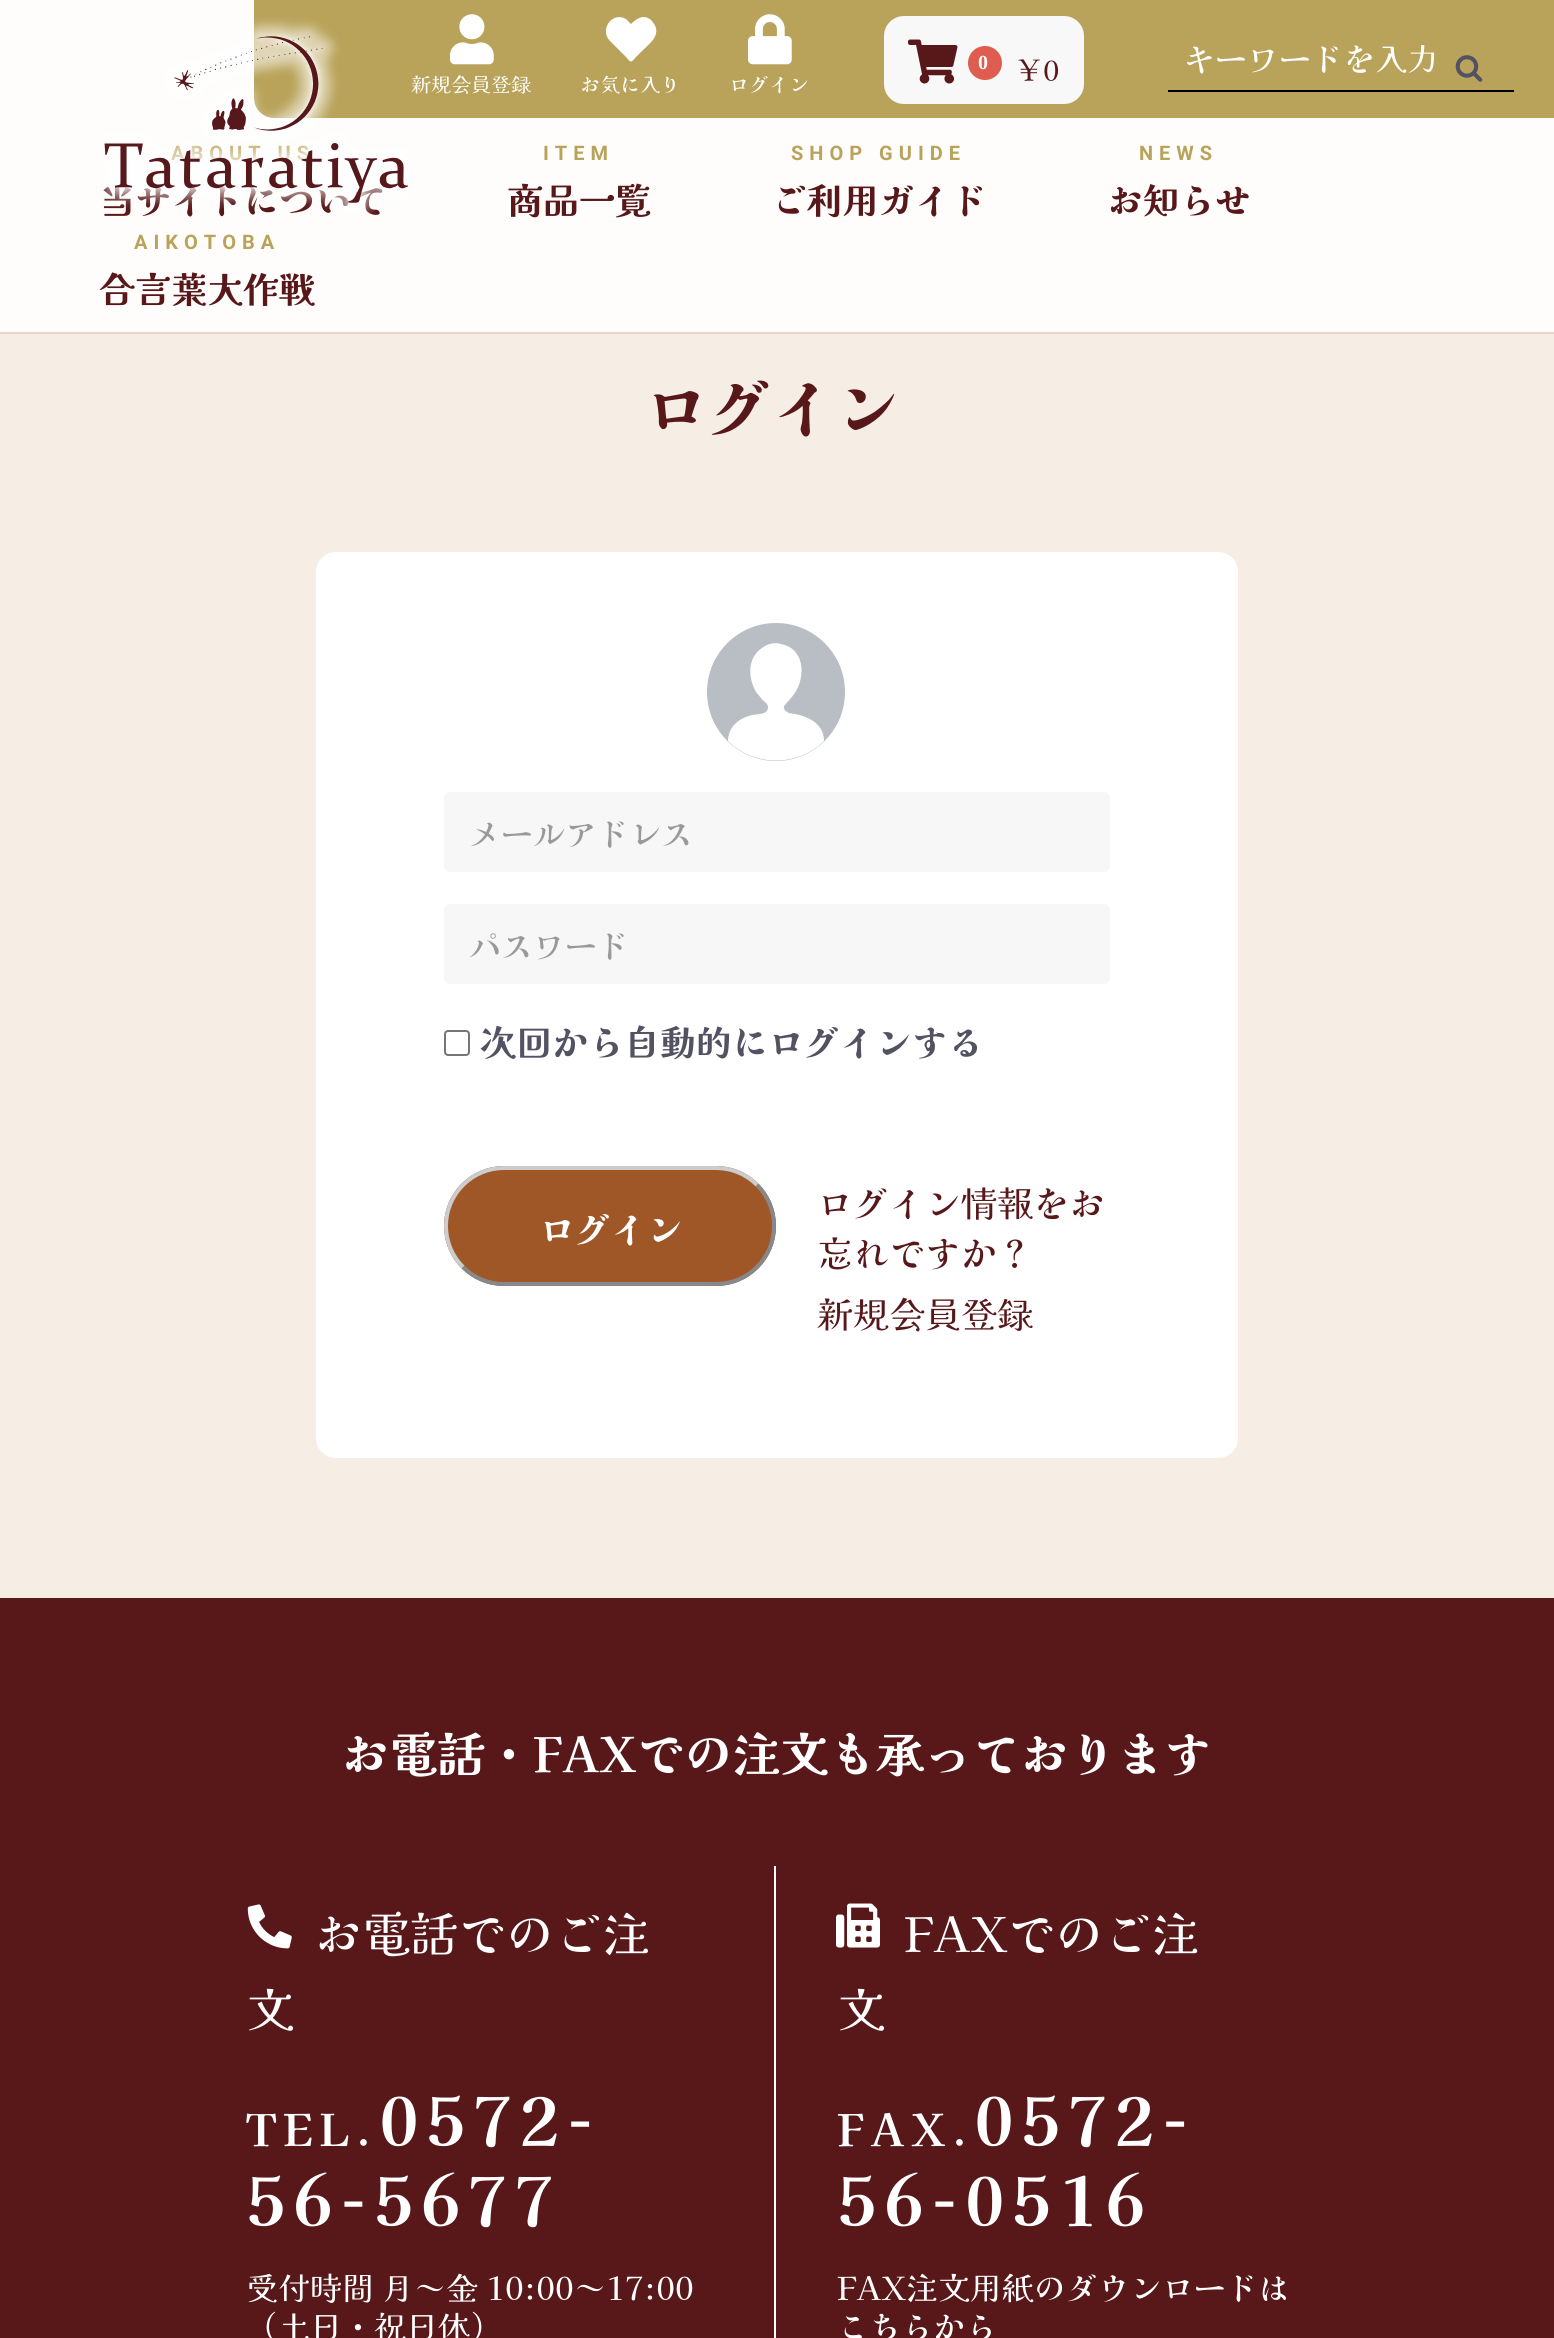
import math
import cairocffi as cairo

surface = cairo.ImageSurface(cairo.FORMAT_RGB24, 1554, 2338)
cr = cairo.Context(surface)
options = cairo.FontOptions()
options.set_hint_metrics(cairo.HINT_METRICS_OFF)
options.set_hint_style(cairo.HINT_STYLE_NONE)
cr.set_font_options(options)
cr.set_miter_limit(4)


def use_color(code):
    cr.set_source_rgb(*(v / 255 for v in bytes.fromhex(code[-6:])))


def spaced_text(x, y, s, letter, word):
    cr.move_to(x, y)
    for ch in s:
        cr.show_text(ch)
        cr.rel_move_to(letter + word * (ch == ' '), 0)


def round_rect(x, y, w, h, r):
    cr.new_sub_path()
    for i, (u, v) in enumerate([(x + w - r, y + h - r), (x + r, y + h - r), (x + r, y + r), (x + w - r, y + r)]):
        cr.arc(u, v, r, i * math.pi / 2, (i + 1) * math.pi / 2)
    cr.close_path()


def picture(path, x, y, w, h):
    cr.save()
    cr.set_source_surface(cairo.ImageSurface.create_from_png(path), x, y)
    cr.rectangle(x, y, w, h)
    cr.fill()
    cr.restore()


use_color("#f6ede4")
cr.paint()
use_color("#fefdfc")
cr.rectangle(0, 0, 1554, 332)
cr.fill()
use_color("#e7d6ca")
cr.rectangle(0, 332, 1554, 2)
cr.fill()
use_color("#b9a35a")
cr.new_path()
cr.move_to(254, 0)
cr.line_to(1554, 0)
cr.line_to(1554, 118)
cr.line_to(274, 118)
cr.curve_to(263, 118, 254, 109, 254, 98)
cr.close_path()
cr.fill()
cr.select_font_face("Roboto", cairo.FONT_SLANT_NORMAL, cairo.FONT_WEIGHT_BOLD)
cr.set_font_size(20)
spaced_text(171, 160, "ABOUT US", 6, 0)
cr.select_font_face("Kaisei Tokumin", cairo.FONT_SLANT_NORMAL, cairo.FONT_WEIGHT_BOLD)
cr.set_font_size(36)
use_color("#58181a")
cr.move_to(99, 214)
cr.show_text("当サイトについて")
picture("img1.png", 103, 17, 305, 197)
use_color("#f8f8f8")
round_rect(884, 16, 200, 88, 20)
cr.fill()
picture("img2.png", 908, 39, 50, 45)
use_color("#de5d50")
cr.arc(985, 63, 17, 0, 2 * math.pi)
cr.fill()
cr.select_font_face("Liberation Serif", cairo.FONT_SLANT_NORMAL, cairo.FONT_WEIGHT_BOLD)
cr.set_font_size(20)
use_color("#ffffff")
cr.move_to(978, 69)
cr.show_text("0")
cr.select_font_face("Kaisei Tokumin")
cr.set_font_size(28)
use_color("#58181a")
cr.move_to(1015, 81)
cr.show_text("￥0")
picture("img3.png", 450, 14, 44, 51)
cr.set_font_size(20)
use_color("#ffffff")
cr.move_to(411, 92)
cr.show_text("新規会員登録")
cr.new_path()
cr.move_to(651, 20)
cr.curve_to(644, 14, 637, 18, 631, 24)
cr.line_to(626, 19)
cr.curve_to(612, 11, 599, 30, 610, 41)
cr.line_to(626, 57)
cr.curve_to(631, 63, 631, 63, 636, 57)
cr.line_to(643, 50)
cr.curve_to(649, 44, 658, 38, 656, 28)
cr.curve_to(655, 25, 653, 22, 651, 20)
cr.close_path()
cr.fill()
cr.move_to(580, 92)
cr.show_text("お気に入り")
picture("img4.png", 748, 14, 44, 51)
cr.move_to(729, 92)
cr.show_text("ログイン")
use_color("#000000")
cr.rectangle(1168, 90, 346, 2)
cr.fill()
cr.set_font_size(32)
use_color("#ffffff")
cr.move_to(1183, 71)
cr.show_text("キーワードを入力")
picture("img5.png", 1455, 55, 28, 27)
cr.select_font_face("Roboto", cairo.FONT_SLANT_NORMAL, cairo.FONT_WEIGHT_BOLD)
cr.set_font_size(20)
use_color("#b9a35a")
spaced_text(543, 160, "ITEM", 6, 0)
cr.select_font_face("Kaisei Tokumin", cairo.FONT_SLANT_NORMAL, cairo.FONT_WEIGHT_BOLD)
cr.set_font_size(36)
use_color("#58181a")
cr.move_to(507, 214)
cr.show_text("商品一覧")
cr.select_font_face("Roboto", cairo.FONT_SLANT_NORMAL, cairo.FONT_WEIGHT_BOLD)
cr.set_font_size(20)
use_color("#b9a35a")
spaced_text(791, 160, "SHOP GUIDE", 6, 0)
cr.select_font_face("Kaisei Tokumin", cairo.FONT_SLANT_NORMAL, cairo.FONT_WEIGHT_BOLD)
cr.set_font_size(36)
use_color("#58181a")
cr.move_to(771, 214)
cr.show_text("ご利用ガイド")
cr.select_font_face("Roboto", cairo.FONT_SLANT_NORMAL, cairo.FONT_WEIGHT_BOLD)
cr.set_font_size(20)
use_color("#b9a35a")
spaced_text(1139, 160, "NEWS", 6, 0)
cr.select_font_face("Kaisei Tokumin", cairo.FONT_SLANT_NORMAL, cairo.FONT_WEIGHT_BOLD)
cr.set_font_size(36)
use_color("#58181a")
cr.move_to(1107, 214)
cr.show_text("お知らせ")
cr.select_font_face("Roboto", cairo.FONT_SLANT_NORMAL, cairo.FONT_WEIGHT_BOLD)
cr.set_font_size(20)
use_color("#b9a35a")
spaced_text(134, 249, "AIKOTOBA", 6, 0)
cr.select_font_face("Kaisei Tokumin", cairo.FONT_SLANT_NORMAL, cairo.FONT_WEIGHT_BOLD)
cr.set_font_size(36)
use_color("#58181a")
cr.move_to(99, 303)
cr.show_text("合言葉大作戦")
cr.set_font_size(64)
cr.move_to(644, 432)
cr.show_text("ログイン")
use_color("#ffffff")
round_rect(316, 552, 922, 906, 20)
cr.fill()
use_color("#b8bec4")
cr.arc(776, 692, 69, 0, 2 * math.pi)
cr.fill()
use_color("#ffffff")
cr.set_fill_rule(cairo.FILL_RULE_EVEN_ODD)
cr.new_path()
cr.move_to(789, 713)
cr.curve_to(786, 712, 783, 709, 784, 706)
cr.line_to(791, 698)
cr.curve_to(806, 682, 807, 649, 781, 644)
cr.curve_to(774, 642, 767, 644, 762, 648)
cr.curve_to(747, 658, 748, 678, 756, 692)
cr.line_to(761, 698)
cr.curve_to(763, 701, 769, 704, 768, 708)
cr.curve_to(767, 715, 757, 714, 752, 715)
cr.curve_to(739, 718, 728, 727, 728, 741)
cr.curve_to(754, 767, 798, 767, 824, 741)
cr.curve_to(824, 722, 805, 715, 789, 713)
cr.close_path()
cr.fill()
use_color("#f7f7f7")
round_rect(444, 792, 666, 80, 6)
cr.fill()
cr.select_font_face("Kaisei Tokumin")
cr.set_font_size(32)
use_color("#999999")
cr.move_to(469, 846)
cr.show_text("メールアドレス")
use_color("#f7f7f7")
round_rect(444, 904, 666, 80, 6)
cr.fill()
use_color("#999999")
cr.move_to(469, 958)
cr.show_text("パスワード")
round_rect(445, 1031, 24, 24, 3)
use_color("#767676")
cr.stroke()
cr.select_font_face("Kaisei Tokumin", cairo.FONT_SLANT_NORMAL, cairo.FONT_WEIGHT_BOLD)
cr.set_font_size(36)
use_color("#525263")
cr.move_to(480, 1056)
cr.show_text("次回から自動的にログインする")
use_color("#9f5728")
round_rect(444, 1166, 332, 120, 60)
cr.fill()
cr.new_path()
cr.move_to(757, 1185)
cr.curve_to(768, 1196, 774, 1210.5, 774, 1226)
cr.curve_to(774, 1241.5, 768, 1256, 757, 1267)
cr.curve_to(746, 1278, 731.5, 1284, 716, 1284)
cr.line_to(504, 1284)
cr.curve_to(488.5, 1284, 474, 1278, 463, 1267)
use_color("#888888")
cr.set_line_width(4)
cr.stroke()
cr.new_path()
cr.move_to(463, 1267)
cr.curve_to(452, 1256, 446, 1241.5, 446, 1226)
cr.curve_to(446, 1210.5, 452, 1196, 463, 1185)
cr.curve_to(474, 1174, 488.5, 1168, 504, 1168)
cr.line_to(716, 1168)
cr.curve_to(731.5, 1168, 746, 1174, 757, 1185)
use_color("#cccccc")
cr.stroke()
use_color("#ffffff")
cr.move_to(539, 1243)
cr.show_text("ログイン")
cr.select_font_face("Kaisei Tokumin")
use_color("#58181a")
cr.move_to(817, 1217)
cr.show_text("ログイン情報をお")
cr.move_to(817, 1267)
cr.show_text("忘れですか？")
cr.move_to(817, 1328)
cr.show_text("新規会員登録")
cr.rectangle(0, 1598, 1554, 740)
cr.fill()
cr.select_font_face("Kaisei Tokumin", cairo.FONT_SLANT_NORMAL, cairo.FONT_WEIGHT_BOLD)
cr.set_font_size(48)
use_color("#ffffff")
cr.move_to(341, 1772)
cr.show_text("お電話・FAXでの注文も承っております")
cr.rectangle(774, 1866, 2, 472)
cr.fill()
picture("img6.png", 247, 1904, 45, 45)
cr.select_font_face("Kaisei Tokumin")
cr.move_to(314, 1952)
cr.show_text("お電話でのご注")
cr.move_to(246, 2028)
cr.show_text("文")
cr.select_font_face("Kaisei Tokumin", cairo.FONT_SLANT_NORMAL, cairo.FONT_WEIGHT_BOLD)
cr.set_font_size(44)
spaced_text(246, 2146, "TEL.", 6.75, 0)
cr.set_font_size(68)
spaced_text(379, 2146, "0572-", 6.75, 0)
spaced_text(246, 2226, "56-5677", 6.75, 0)
cr.select_font_face("Kaisei Tokumin")
cr.set_font_size(32)
cr.move_to(246, 2300)
cr.show_text("受付時間 月～金 10:00～17:00")
cr.move_to(246, 2339)
cr.show_text("（土日・祝日休）")
picture("img7.png", 836, 1903, 44, 45)
cr.set_font_size(48)
cr.move_to(904, 1952)
cr.show_text("FAXでのご注")
cr.move_to(837, 2028)
cr.show_text("文")
cr.select_font_face("Kaisei Tokumin", cairo.FONT_SLANT_NORMAL, cairo.FONT_WEIGHT_BOLD)
cr.set_font_size(44)
spaced_text(837, 2146, "FAX.", 6.75, 0)
cr.set_font_size(68)
spaced_text(974, 2146, "0572-", 6.75, 0)
spaced_text(837, 2226, "56-0516", 6.75, 0)
cr.select_font_face("Kaisei Tokumin")
cr.set_font_size(32)
cr.move_to(837, 2300)
cr.show_text("FAX注文用紙のダウンロードは")
cr.move_to(837, 2339)
cr.show_text("こちらから")
surface.write_to_png("result.png")
